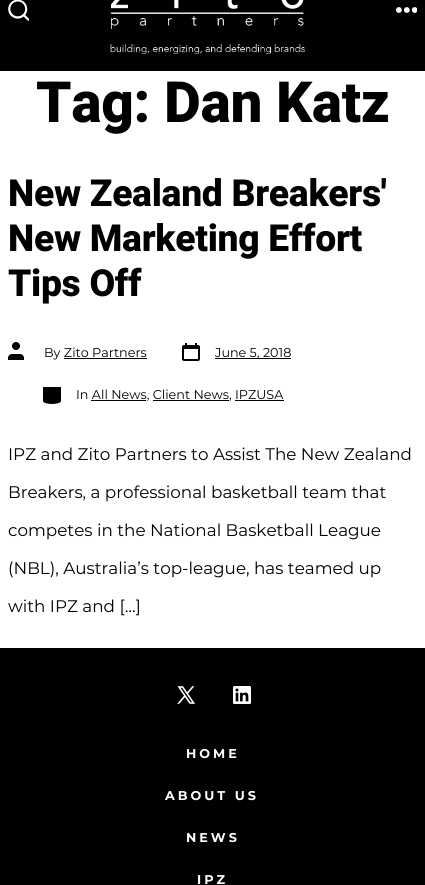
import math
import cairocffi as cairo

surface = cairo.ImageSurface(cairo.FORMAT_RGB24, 425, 885)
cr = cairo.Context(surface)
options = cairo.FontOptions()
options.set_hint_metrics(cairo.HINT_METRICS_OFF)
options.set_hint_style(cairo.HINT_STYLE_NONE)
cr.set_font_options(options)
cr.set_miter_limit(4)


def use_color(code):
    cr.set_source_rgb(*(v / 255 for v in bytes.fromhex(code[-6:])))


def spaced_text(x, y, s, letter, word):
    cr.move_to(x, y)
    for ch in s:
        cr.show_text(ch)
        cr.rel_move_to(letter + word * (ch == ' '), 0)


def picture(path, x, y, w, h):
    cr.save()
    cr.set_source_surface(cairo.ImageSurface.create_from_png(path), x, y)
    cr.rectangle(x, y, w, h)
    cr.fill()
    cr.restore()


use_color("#ffffff")
cr.paint()
use_color("#000000")
cr.rectangle(0, 0, 425, 71)
cr.fill()
picture("img1.png", 8, 0, 21, 21)
picture("img2.png", 110, 0, 195, 54)
picture("img3.png", 396, 7, 21, 6)
cr.select_font_face("Heebo ExtraBold")
cr.set_font_size(56.75)
spaced_text(36, 122, "Tag: Dan Katz", -0.3, 0)
cr.set_font_size(37.25)
spaced_text(8, 206, "New Zealand Breakers'", -0.3, 0)
spaced_text(8, 251, "New Marketing Effort", -0.3, 0)
spaced_text(8, 296, "Tips Off", -0.3, 0)
picture("img4.png", 8, 342, 16, 18)
cr.select_font_face("Montserrat")
cr.set_font_size(12.75)
cr.move_to(44, 357)
cr.show_text("By Zito Partners")
cr.rectangle(64, 358, 83, 1)
cr.fill()
picture("img5.png", 182, 343, 18, 18)
cr.rectangle(215, 358, 76, 1)
cr.fill()
cr.move_to(215, 357)
cr.show_text("June 5, 2018")
picture("img6.png", 43, 387, 18, 17)
cr.move_to(76, 399)
cr.show_text("In All News, Client News, IPZUSA")
cr.rectangle(91, 400, 55, 1)
cr.fill()
cr.rectangle(153, 400, 76, 1)
cr.fill()
cr.rectangle(235, 400, 49, 1)
cr.fill()
cr.set_font_size(16.8)
cr.move_to(8, 460)
cr.show_text("IPZ and Zito Partners to Assist The New Zealand")
cr.move_to(8, 498)
cr.show_text("Breakers, a professional basketball team that")
cr.move_to(8, 536)
cr.show_text("competes in the National Basketball League")
cr.move_to(8, 574)
cr.show_text("(NBL), Australia’s top-league, has teamed up")
cr.move_to(8, 612)
cr.show_text("with IPZ and […]")
cr.rectangle(0, 648, 425, 237)
cr.fill()
picture("img7.png", 177, 686, 18, 18)
picture("img8.png", 233, 686, 18, 18)
cr.select_font_face("Montserrat", cairo.FONT_SLANT_NORMAL, cairo.FONT_WEIGHT_BOLD)
cr.set_font_size(12.75)
use_color("#ffffff")
spaced_text(186, 758, "HOME", 3, 0)
spaced_text(165, 800, "ABOUT US", 3, 0)
spaced_text(186, 842, "NEWS", 3, 0)
spaced_text(197, 884, "IPZ", 3, 0)
surface.write_to_png("result.png")
